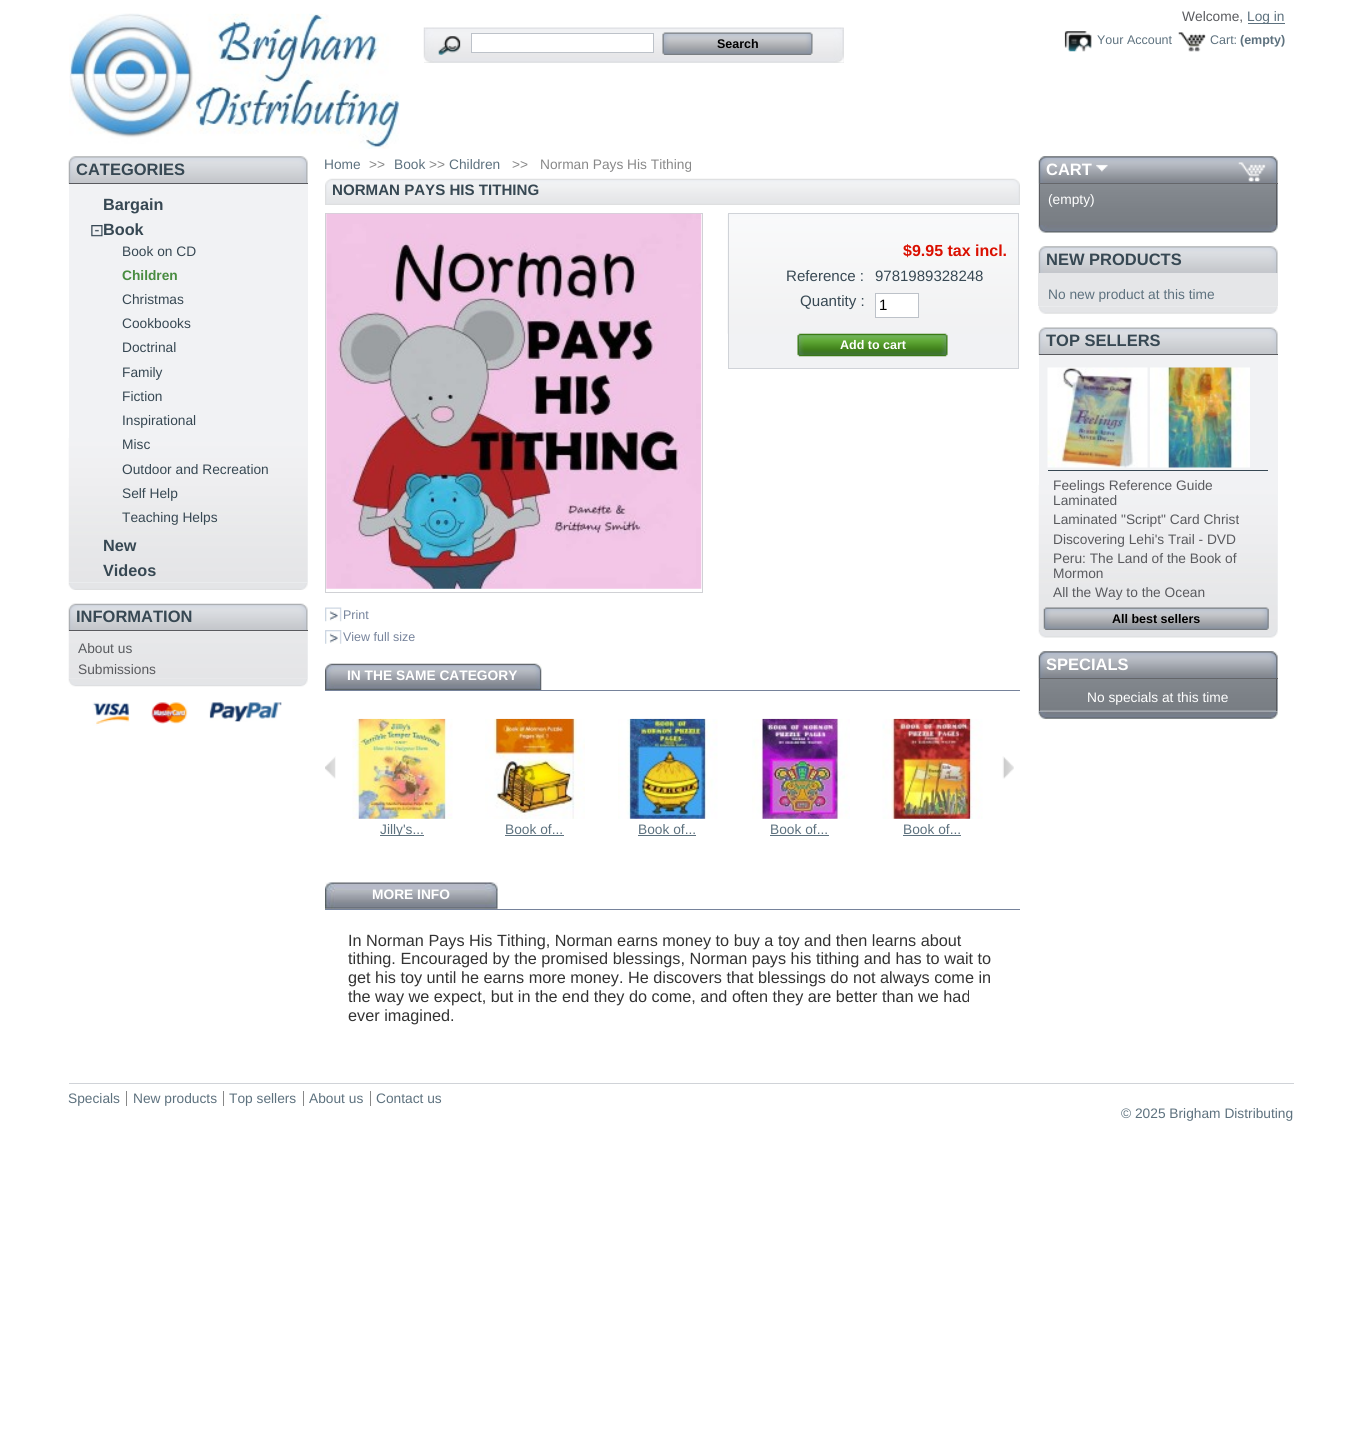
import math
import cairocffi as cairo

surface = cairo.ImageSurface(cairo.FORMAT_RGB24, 1361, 1442)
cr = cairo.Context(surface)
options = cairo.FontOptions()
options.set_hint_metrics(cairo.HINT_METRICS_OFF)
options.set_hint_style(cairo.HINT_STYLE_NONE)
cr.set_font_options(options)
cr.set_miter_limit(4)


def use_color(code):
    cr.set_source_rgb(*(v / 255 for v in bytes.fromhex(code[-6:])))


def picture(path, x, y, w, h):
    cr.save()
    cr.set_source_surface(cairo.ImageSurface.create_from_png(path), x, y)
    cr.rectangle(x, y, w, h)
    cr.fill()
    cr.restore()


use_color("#ffffff")
cr.paint()
picture("img1.png", 69, 13, 331, 136)
use_color("#e5e6e7")
cr.rectangle(424, 28, 420, 35)
cr.fill()
picture("img2.png", 423, 27, 421, 36)
picture("img3.png", 438, 36, 23, 19)
use_color("#ffffff")
cr.rectangle(471.5, 33.5, 182, 19)
cr.fill_preserve()
use_color("#bdc2c9")
cr.set_line_width(1)
cr.stroke()
use_color("#efefef")
cr.rectangle(663, 33, 150, 22)
cr.fill()
picture("img4.png", 662, 32, 151, 23)
cr.select_font_face("Liberation Sans", cairo.FONT_SLANT_NORMAL, cairo.FONT_WEIGHT_BOLD)
cr.set_font_size(12.5)
use_color("#000000")
cr.move_to(717, 48)
cr.show_text("Search")
cr.select_font_face("Liberation Sans")
cr.set_font_size(13.75)
use_color("#595a5e")
cr.move_to(1182, 21)
cr.show_text("Welcome,")
use_color("#5d717e")
cr.rectangle(1248, 23, 37, 1)
cr.fill()
cr.move_to(1247, 21)
cr.show_text("Log in")
picture("img5.png", 1064, 31, 28, 21)
cr.set_font_size(12.5)
cr.move_to(1097, 44)
cr.show_text("Your Account")
picture("img6.png", 1178, 32, 28, 20)
cr.move_to(1210, 44)
cr.show_text("Cart:")
cr.select_font_face("Liberation Sans", cairo.FONT_SLANT_NORMAL, cairo.FONT_WEIGHT_BOLD)
cr.move_to(1240, 44)
cr.show_text("(empty)")
picture("img7.png", 68, 582, 240, 8)
picture("img8.png", 68, 156, 240, 28)
use_color("#595a5e")
cr.rectangle(69, 183, 239, 1)
cr.fill()
cr.set_font_size(16.5)
use_color("#374853")
cr.move_to(76, 175)
cr.show_text("CATEGORIES")
use_color("#f1f2f4")
cr.rectangle(69, 184, 239, 399)
cr.fill()
picture("img9.png", 68, 438, 240, 145)
cr.set_font_size(16.25)
use_color("#374853")
cr.move_to(103, 210)
cr.show_text("Bargain")
picture("img10.png", 91, 225, 12, 12)
cr.move_to(103, 235)
cr.show_text("Book")
cr.select_font_face("Liberation Sans")
cr.set_font_size(13.75)
cr.move_to(122, 256)
cr.show_text("Book on CD")
cr.select_font_face("Liberation Sans", cairo.FONT_SLANT_NORMAL, cairo.FONT_WEIGHT_BOLD)
use_color("#488c40")
cr.move_to(122, 280)
cr.show_text("Children")
cr.select_font_face("Liberation Sans")
use_color("#374853")
cr.move_to(122, 304)
cr.show_text("Christmas")
cr.move_to(122, 328)
cr.show_text("Cookbooks")
cr.move_to(122, 352)
cr.show_text("Doctrinal")
cr.move_to(122, 377)
cr.show_text("Family")
cr.move_to(122, 401)
cr.show_text("Fiction")
cr.move_to(122, 425)
cr.show_text("Inspirational")
cr.move_to(122, 449)
cr.show_text("Misc")
cr.move_to(122, 474)
cr.show_text("Outdoor and Recreation")
cr.move_to(122, 498)
cr.show_text("Self Help")
cr.move_to(122, 522)
cr.show_text("Teaching Helps")
cr.select_font_face("Liberation Sans", cairo.FONT_SLANT_NORMAL, cairo.FONT_WEIGHT_BOLD)
cr.set_font_size(16.25)
cr.move_to(103, 551)
cr.show_text("New")
cr.move_to(103, 576)
cr.show_text("Videos")
picture("img11.png", 68, 678, 240, 9)
picture("img12.png", 68, 603, 240, 29)
use_color("#595a5e")
cr.rectangle(69, 630, 239, 1)
cr.fill()
cr.set_font_size(16.5)
use_color("#374853")
cr.move_to(76, 622)
cr.show_text("INFORMATION")
use_color("#f1f2f4")
cr.rectangle(69, 631, 239, 48)
cr.fill()
picture("img13.png", 68, 631, 240, 48)
cr.select_font_face("Liberation Sans")
cr.set_font_size(13.75)
use_color("#595a5e")
cr.move_to(78, 653)
cr.show_text("About us")
cr.move_to(78, 674)
cr.show_text("Submissions")
picture("img14.png", 92, 702, 38, 24)
picture("img15.png", 151, 700, 37, 24)
picture("img16.png", 209, 702, 73, 20)
use_color("#5d717e")
cr.move_to(324, 169)
cr.show_text("Home")
use_color("#888888")
cr.move_to(369, 169)
cr.show_text(">>")
use_color("#5d717e")
cr.move_to(394, 169)
cr.show_text("Book")
use_color("#888888")
cr.move_to(429, 169)
cr.show_text(">>")
use_color("#5d717e")
cr.move_to(449, 169)
cr.show_text("Children")
use_color("#888888")
cr.move_to(512, 169)
cr.show_text(">>")
cr.move_to(540, 169)
cr.show_text("Norman Pays His Tithing")
picture("img17.png", 325, 178, 695, 27)
cr.select_font_face("Liberation Sans", cairo.FONT_SLANT_NORMAL, cairo.FONT_WEIGHT_BOLD)
cr.set_font_size(15.1)
use_color("#374853")
cr.move_to(332, 195)
cr.show_text("NORMAN PAYS HIS TITHING")
use_color("#f1f2f4")
cr.rectangle(729, 333, 289, 35)
cr.fill()
picture("img18.png", 727, 214, 291, 120)
cr.rectangle(728.5, 213.5, 290, 155)
use_color("#d0d3d8")
cr.stroke()
cr.set_font_size(16)
use_color("#da0f00")
cr.move_to(903, 256)
cr.show_text("$9.95 tax incl.")
cr.select_font_face("Liberation Sans")
cr.set_font_size(15.1)
use_color("#374853")
cr.move_to(786, 281)
cr.show_text("Reference :")
cr.set_font_size(15)
cr.move_to(875, 281)
cr.show_text("9781989328248")
cr.set_font_size(15.1)
cr.move_to(800, 306)
cr.show_text("Quantity :")
use_color("#ffffff")
cr.rectangle(875.5, 293.5, 43, 24)
cr.fill_preserve()
use_color("#bdc2c9")
cr.stroke()
cr.set_font_size(15)
use_color("#000000")
cr.move_to(879, 310)
cr.show_text("1")
use_color("#efefef")
cr.rectangle(798, 334, 150, 22)
cr.fill()
picture("img19.png", 797, 333, 151, 24)
cr.select_font_face("Liberation Sans", cairo.FONT_SLANT_NORMAL, cairo.FONT_WEIGHT_BOLD)
cr.set_font_size(12.5)
use_color("#ffffff")
cr.move_to(840, 349)
cr.show_text("Add to cart")
cr.rectangle(325.5, 213.5, 377, 379)
use_color("#d0d1d5")
cr.stroke()
picture("img20.png", 326, 213, 376, 376)
picture("img21.png", 325, 607, 17, 15)
cr.select_font_face("Liberation Sans")
use_color("#76839b")
cr.move_to(343, 619)
cr.show_text("Print")
picture("img22.png", 325, 630, 17, 14)
cr.move_to(343, 641)
cr.show_text("View full size")
cr.rectangle(325, 690, 695, 1)
cr.fill()
picture("img23.png", 325, 663, 217, 27)
cr.select_font_face("Liberation Sans", cairo.FONT_SLANT_NORMAL, cairo.FONT_WEIGHT_BOLD)
cr.set_font_size(13.75)
use_color("#ffffff")
cr.move_to(347, 680)
cr.show_text("IN THE SAME CATEGORY")
picture("img24.png", 325, 756, 11, 23)
picture("img25.png", 1002, 756, 12, 23)
picture("img26.png", 352, 718, 101, 101)
use_color("#5d717e")
cr.rectangle(380, 835, 44, 1)
cr.fill()
cr.save()
cr.rectangle(340, 719, 125, 117)
cr.clip()
cr.select_font_face("Liberation Sans")
cr.move_to(380, 834)
cr.show_text("Jilly's...")
cr.restore()
picture("img27.png", 485, 718, 100, 101)
cr.select_font_face("Liberation Sans")
cr.move_to(505, 834)
cr.show_text("Book of...")
cr.rectangle(505, 835, 59, 1)
cr.fill()
picture("img28.png", 618, 718, 100, 101)
cr.move_to(638, 834)
cr.show_text("Book of...")
cr.rectangle(638, 835, 58, 1)
cr.fill()
picture("img29.png", 752, 718, 98, 101)
cr.move_to(770, 834)
cr.show_text("Book of...")
cr.rectangle(770, 835, 59, 1)
cr.fill()
picture("img30.png", 882, 718, 101, 101)
cr.move_to(903, 834)
cr.show_text("Book of...")
cr.rectangle(903, 835, 58, 1)
cr.fill()
use_color("#76839b")
cr.rectangle(325, 909, 695, 1)
cr.fill()
picture("img31.png", 325, 882, 173, 27)
cr.select_font_face("Liberation Sans", cairo.FONT_SLANT_NORMAL, cairo.FONT_WEIGHT_BOLD)
use_color("#ffffff")
cr.move_to(372, 899)
cr.show_text("MORE INFO")
cr.select_font_face("Liberation Sans")
cr.set_font_size(16.25)
use_color("#333333")
cr.move_to(348, 946)
cr.show_text("In Norman Pays His Tithing, Norman earns money to buy a toy and then learns about")
cr.move_to(348, 964)
cr.show_text("tithing. Encouraged by the promised blessings, Norman pays his tithing and has to wait to")
cr.move_to(348, 983)
cr.show_text("get his toy until he earns more money. He discovers that blessings do not always come in")
cr.move_to(348, 1002)
cr.show_text("the way we expect, but in the end they do come, and often they are better than we had")
cr.move_to(348, 1021)
cr.show_text("ever imagined.")
picture("img32.png", 1038, 225, 240, 8)
picture("img33.png", 1038, 156, 240, 28)
use_color("#595a5e")
cr.rectangle(1039, 183, 239, 1)
cr.fill()
cr.select_font_face("Liberation Sans", cairo.FONT_SLANT_NORMAL, cairo.FONT_WEIGHT_BOLD)
cr.set_font_size(16.5)
use_color("#ffffff")
cr.move_to(1046, 175)
cr.show_text("CART")
picture("img34.png", 1096, 164, 12, 8)
use_color("#bdc2c9")
cr.rectangle(1277, 184, 1, 41)
cr.fill()
picture("img35.png", 1038, 183, 240, 42)
use_color("#595a5e")
cr.rectangle(1276, 184, 1, 41)
cr.fill()
cr.rectangle(1039, 184, 1, 41)
cr.fill()
cr.select_font_face("Liberation Sans")
cr.set_font_size(13.75)
use_color("#ffffff")
cr.move_to(1048, 204)
cr.show_text("(empty)")
picture("img36.png", 1038, 306, 240, 8)
picture("img37.png", 1038, 246, 240, 27)
cr.select_font_face("Liberation Sans", cairo.FONT_SLANT_NORMAL, cairo.FONT_WEIGHT_BOLD)
cr.set_font_size(16.5)
use_color("#374853")
cr.move_to(1046, 265)
cr.show_text("NEW PRODUCTS")
use_color("#e5e6e8")
cr.rectangle(1038, 273, 240, 33)
cr.fill()
cr.select_font_face("Liberation Sans")
cr.set_font_size(13.75)
use_color("#5d717e")
cr.move_to(1048, 299)
cr.show_text("No new product at this time")
picture("img38.png", 1038, 630, 240, 8)
picture("img39.png", 1038, 327, 240, 28)
use_color("#595a5e")
cr.rectangle(1039, 354, 239, 1)
cr.fill()
cr.select_font_face("Liberation Sans", cairo.FONT_SLANT_NORMAL, cairo.FONT_WEIGHT_BOLD)
cr.set_font_size(16.5)
use_color("#374853")
cr.move_to(1046, 346)
cr.show_text("TOP SELLERS")
use_color("#f1f2f4")
cr.rectangle(1039, 355, 239, 275)
cr.fill()
picture("img40.png", 1038, 485, 240, 145)
picture("img41.png", 1047, 367, 101, 101)
picture("img42.png", 1150, 367, 100, 101)
use_color("#374853")
cr.rectangle(1048, 470, 220, 1)
cr.fill()
cr.select_font_face("Liberation Sans")
cr.set_font_size(13.75)
use_color("#595a5e")
cr.move_to(1053, 490)
cr.show_text("Feelings Reference Guide")
cr.move_to(1053, 505)
cr.show_text("Laminated")
cr.move_to(1053, 524)
cr.show_text("Laminated \"Script\" Card Christ")
cr.move_to(1053, 544)
cr.show_text("Discovering Lehi's Trail - DVD")
cr.move_to(1053, 563)
cr.show_text("Peru: The Land of the Book of")
cr.move_to(1053, 578)
cr.show_text("Mormon")
cr.move_to(1053, 597)
cr.show_text("All the Way to the Ocean")
picture("img43.png", 1043, 607, 226, 23)
cr.select_font_face("Liberation Sans", cairo.FONT_SLANT_NORMAL, cairo.FONT_WEIGHT_BOLD)
cr.set_font_size(12.5)
use_color("#000000")
cr.move_to(1112, 623)
cr.show_text("All best sellers")
picture("img44.png", 1038, 711, 240, 8)
picture("img45.png", 1038, 651, 240, 28)
use_color("#595a5e")
cr.rectangle(1039, 678, 239, 1)
cr.fill()
cr.set_font_size(16.5)
use_color("#ffffff")
cr.move_to(1046, 670)
cr.show_text("SPECIALS")
use_color("#bdc2c9")
cr.rectangle(1277, 679, 1, 32)
cr.fill()
picture("img46.png", 1038, 678, 240, 34)
use_color("#595a5e")
cr.rectangle(1276, 679, 1, 32)
cr.fill()
cr.rectangle(1039, 679, 1, 32)
cr.fill()
cr.select_font_face("Liberation Sans")
cr.set_font_size(13.75)
use_color("#ffffff")
cr.move_to(1087, 702)
cr.show_text("No specials at this time")
use_color("#d0d3d8")
cr.rectangle(69, 1083, 1225, 1)
cr.fill()
use_color("#5d717e")
cr.move_to(68, 1103)
cr.show_text("Specials")
cr.move_to(133, 1103)
cr.show_text("New products")
use_color("#888888")
cr.rectangle(126, 1091, 1, 15)
cr.fill()
use_color("#5d717e")
cr.move_to(229, 1103)
cr.show_text("Top sellers")
use_color("#888888")
cr.rectangle(223, 1091, 1, 15)
cr.fill()
use_color("#5d717e")
cr.move_to(309, 1103)
cr.show_text("About us")
use_color("#888888")
cr.rectangle(303, 1091, 1, 15)
cr.fill()
use_color("#5d717e")
cr.move_to(376, 1103)
cr.show_text("Contact us")
use_color("#888888")
cr.rectangle(370, 1091, 1, 15)
cr.fill()
use_color("#5d717e")
cr.move_to(1121, 1118)
cr.show_text("© 2025 Brigham Distributing")
surface.write_to_png("result.png")
